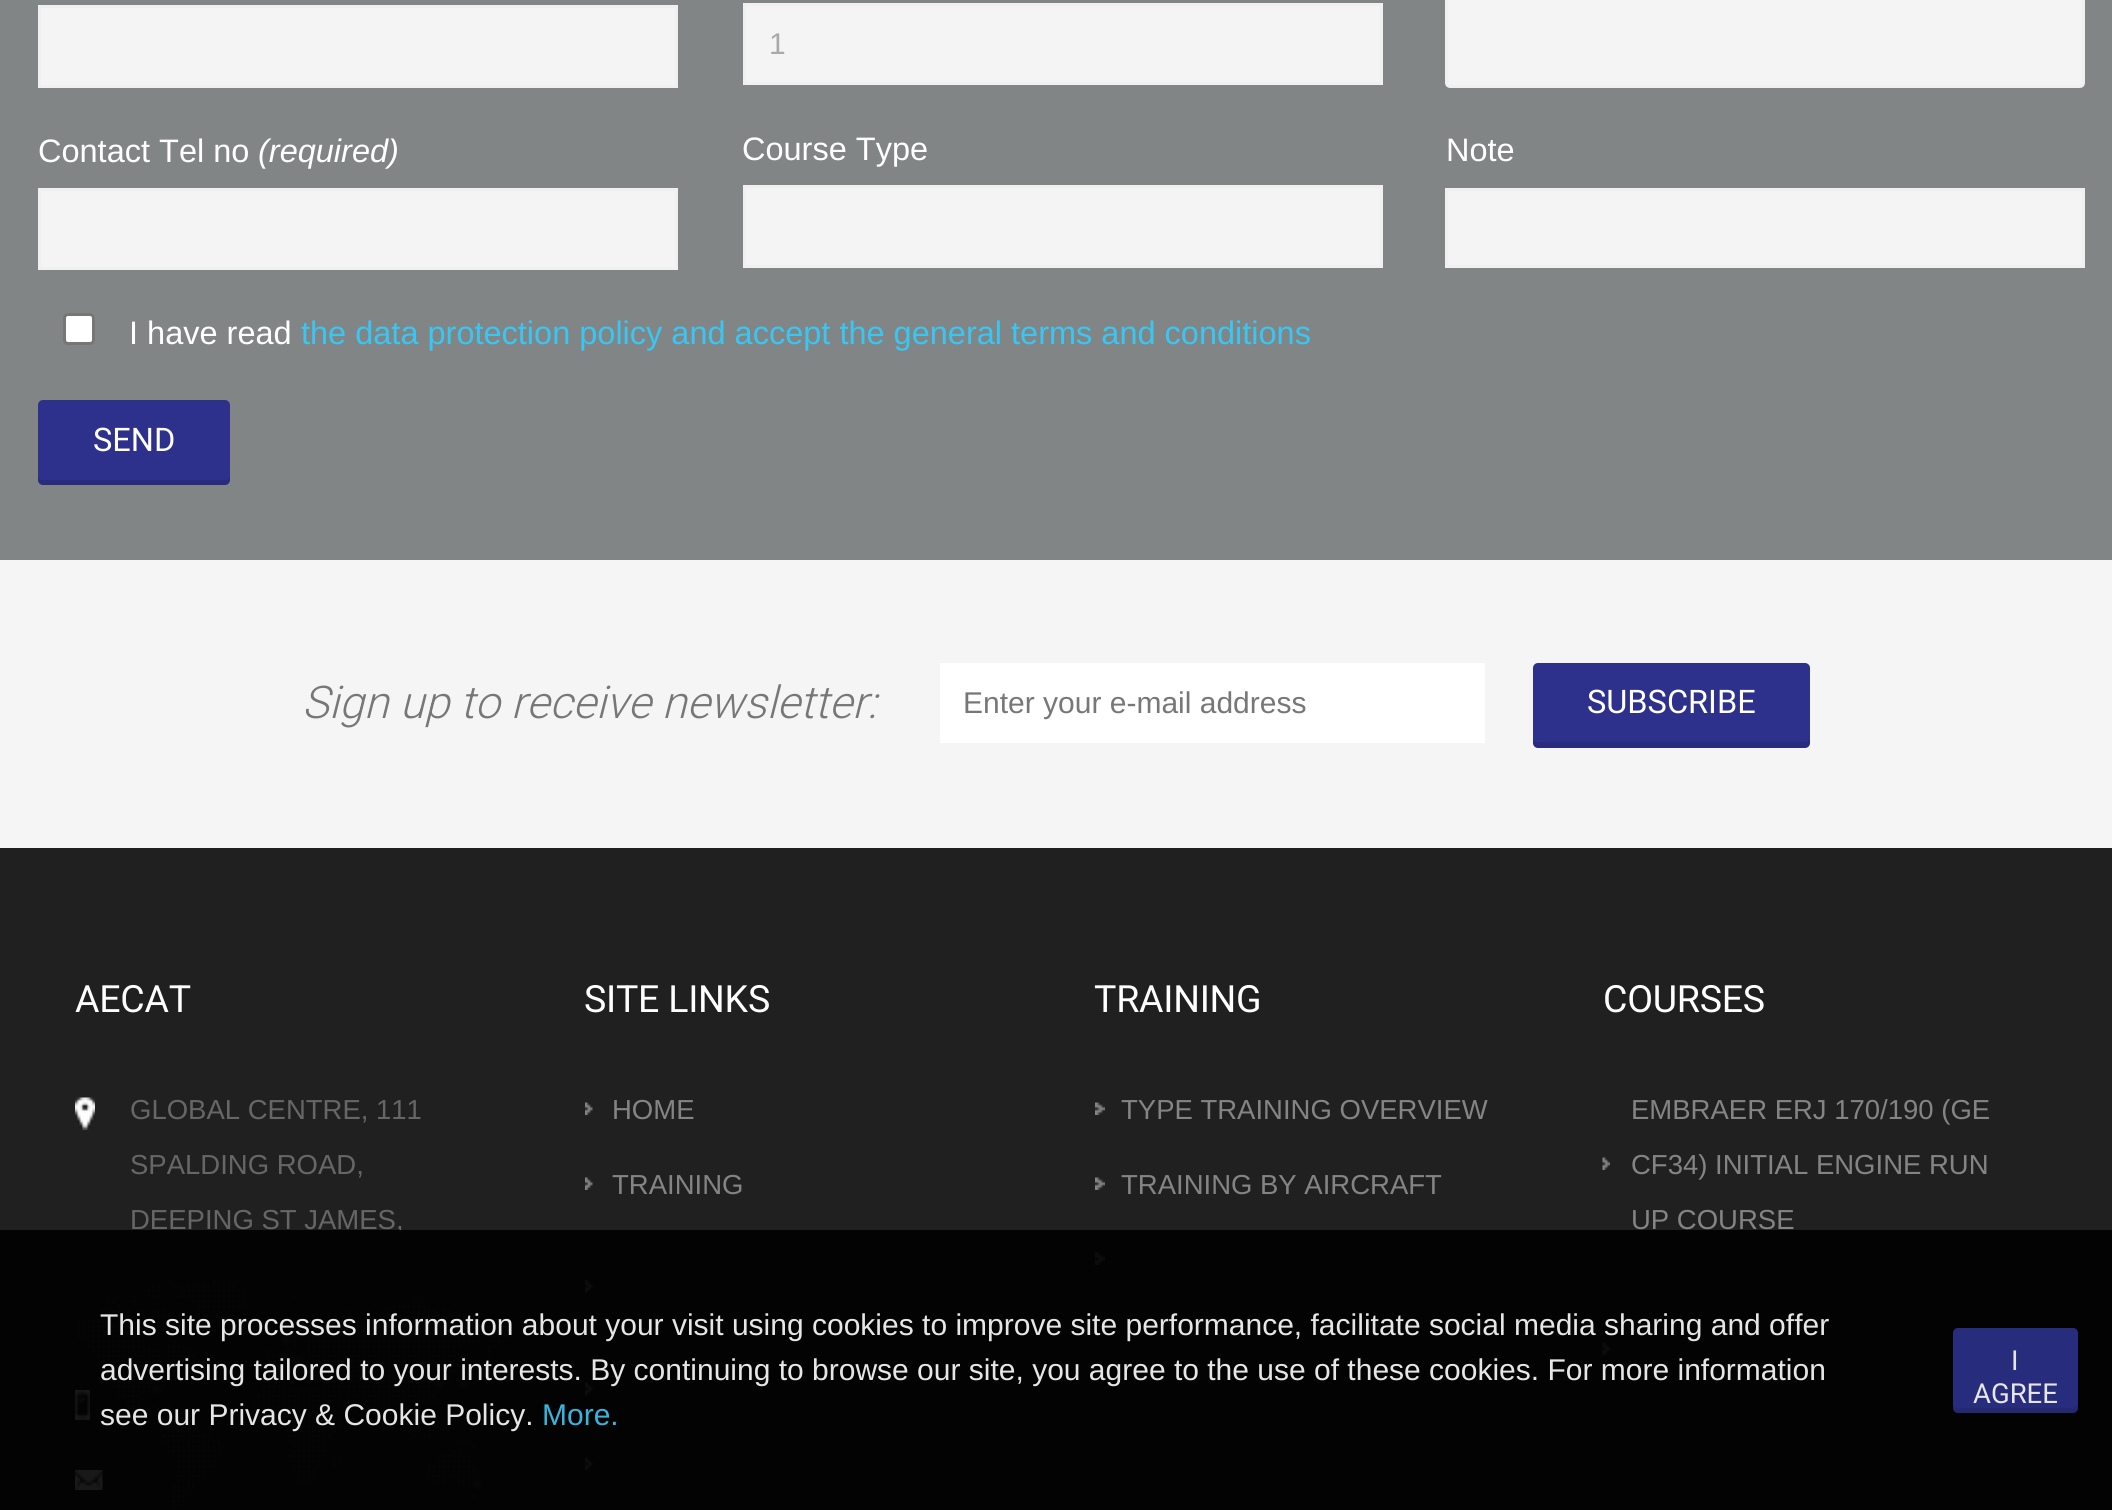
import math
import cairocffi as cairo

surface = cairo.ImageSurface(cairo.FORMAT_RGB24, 2112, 1510)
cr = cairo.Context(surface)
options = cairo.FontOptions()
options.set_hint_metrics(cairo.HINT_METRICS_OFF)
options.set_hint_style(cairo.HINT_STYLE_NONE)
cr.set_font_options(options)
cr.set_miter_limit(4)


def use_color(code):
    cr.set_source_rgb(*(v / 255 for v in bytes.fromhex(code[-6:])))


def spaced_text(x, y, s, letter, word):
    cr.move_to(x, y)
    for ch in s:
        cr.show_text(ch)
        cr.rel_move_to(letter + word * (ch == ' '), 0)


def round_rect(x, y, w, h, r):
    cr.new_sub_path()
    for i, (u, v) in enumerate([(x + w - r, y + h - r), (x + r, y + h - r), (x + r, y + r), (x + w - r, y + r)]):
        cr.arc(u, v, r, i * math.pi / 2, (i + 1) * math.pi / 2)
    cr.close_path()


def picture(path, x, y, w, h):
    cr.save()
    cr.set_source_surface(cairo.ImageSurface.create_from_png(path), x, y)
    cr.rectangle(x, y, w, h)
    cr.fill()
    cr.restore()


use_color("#828586")
cr.paint()
use_color("#f4f4f4")
cr.rectangle(39.5, 6.5, 637, 80)
cr.fill_preserve()
use_color("#f0f0f0")
cr.set_line_width(3)
cr.stroke()
cr.select_font_face("Liberation Sans")
cr.set_font_size(32.5)
use_color("#ffffff")
cr.move_to(38, 162)
cr.show_text("Contact Tel no")
cr.select_font_face("Liberation Sans", cairo.FONT_SLANT_ITALIC)
cr.move_to(258, 162)
cr.show_text("(required)")
use_color("#f4f4f4")
cr.rectangle(39.5, 189.5, 637, 79)
cr.fill_preserve()
use_color("#f0f0f0")
cr.stroke()
use_color("#f4f4f4")
cr.rectangle(744.5, 4.5, 637, 79)
cr.fill_preserve()
use_color("#f0f0f0")
cr.stroke()
cr.select_font_face("Liberation Sans")
cr.set_font_size(30)
use_color("#a9a9a9")
cr.move_to(769, 54)
cr.show_text("1")
cr.set_font_size(32.5)
use_color("#ffffff")
cr.move_to(742, 160)
cr.show_text("Course Type")
use_color("#f4f4f4")
cr.rectangle(744.5, 186.5, 637, 80)
cr.fill_preserve()
use_color("#f0f0f0")
cr.stroke()
use_color("#f4f4f4")
round_rect(1446.5, -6.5, 637, 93, 3.5)
cr.fill_preserve()
use_color("#f0f0f0")
cr.stroke()
use_color("#ffffff")
cr.move_to(1446, 161)
cr.show_text("Note")
use_color("#f4f4f4")
cr.rectangle(1446.5, 189.5, 637, 77)
cr.fill_preserve()
use_color("#f0f0f0")
cr.stroke()
use_color("#ffffff")
round_rect(64.5, 314.5, 29, 29, 3.5)
cr.fill_preserve()
use_color("#767676")
cr.stroke()
use_color("#ffffff")
cr.move_to(129, 344)
cr.show_text("I have read")
use_color("#38c6f3")
cr.move_to(301, 344)
cr.show_text("the data protection policy and accept the general terms and conditions")
use_color("#2d318b")
round_rect(38, 400, 192, 85, 5)
cr.fill()
cr.set_source_rgba(0, 0, 0, 0.1)
cr.new_path()
cr.move_to(38, 475)
cr.line_to(38, 480)
cr.curve_to(38, 483, 40, 485, 43, 485)
cr.line_to(225, 485)
cr.curve_to(228, 485, 230, 483, 230, 480)
cr.line_to(230, 475)
cr.curve_to(230, 478, 228, 480, 225, 480)
cr.line_to(42, 480)
cr.curve_to(40, 480, 38, 478, 38, 475)
cr.close_path()
cr.fill()
cr.select_font_face("Roboto")
use_color("#ffffff")
cr.move_to(93, 451)
cr.show_text("SEND")
use_color("#f5f5f5")
cr.rectangle(0, 560, 2112, 288)
cr.fill()
cr.select_font_face("Roboto Light", cairo.FONT_SLANT_ITALIC)
cr.set_font_size(45)
use_color("#777777")
cr.move_to(302, 718)
cr.show_text("Sign up to receive newsletter:")
use_color("#ffffff")
cr.rectangle(940, 663, 545, 80)
cr.fill()
cr.select_font_face("Liberation Sans")
cr.set_font_size(30)
use_color("#777777")
cr.move_to(963, 713)
cr.show_text("Enter your e-mail address")
use_color("#2d318b")
round_rect(1533, 663, 277, 85, 5)
cr.fill()
cr.set_source_rgba(0, 0, 0, 0.1)
cr.new_path()
cr.move_to(1533, 740)
cr.line_to(1533, 743)
cr.curve_to(1533, 746, 1535, 748, 1538, 748)
cr.line_to(1805, 748)
cr.curve_to(1808, 748, 1810, 746, 1810, 743)
cr.line_to(1810, 738)
cr.curve_to(1810, 740, 1808, 742, 1805, 742)
cr.line_to(1538, 742)
cr.curve_to(1536, 742, 1534, 741, 1533, 740)
cr.close_path()
cr.fill()
cr.select_font_face("Roboto")
cr.set_font_size(32.5)
use_color("#ffffff")
cr.move_to(1587, 713)
cr.show_text("SUBSCRIBE")
use_color("#202020")
cr.rectangle(0, 848, 2112, 662)
cr.fill()
cr.set_font_size(37.5)
use_color("#ffffff")
spaced_text(75, 1012, "AECAT", -0.25, 0)
picture("img1.png", 77, 1279, 433, 231)
picture("img2.png", 75, 1097, 20, 33)
cr.select_font_face("Liberation Sans")
cr.set_font_size(27.5)
use_color("#666666")
cr.move_to(130, 1119)
cr.show_text("GLOBAL CENTRE, 111")
cr.move_to(130, 1174)
cr.show_text("SPALDING ROAD,")
cr.move_to(130, 1229)
cr.show_text("DEEPING ST JAMES,")
picture("img3.png", 75, 1390, 15, 30)
picture("img4.png", 75, 1470, 28, 20)
cr.select_font_face("Roboto")
cr.set_font_size(37.5)
use_color("#ffffff")
spaced_text(584, 1012, "SITE LINKS", -0.25, 0)
picture("img5.png", 585, 1102, 8, 13)
cr.select_font_face("Liberation Sans")
cr.set_font_size(27.5)
use_color("#848484")
cr.move_to(612, 1119)
cr.show_text("HOME")
picture("img5.png", 585, 1177, 8, 13)
cr.move_to(612, 1194)
cr.show_text("TRAINING")
picture("img6.png", 585, 1280, 8, 13)
picture("img5.png", 585, 1382, 8, 13)
picture("img5.png", 585, 1457, 8, 13)
cr.select_font_face("Roboto")
cr.set_font_size(37.5)
use_color("#ffffff")
spaced_text(1094, 1012, "TRAINING", -0.25, 0)
picture("img7.png", 1095, 1102, 10, 13)
cr.select_font_face("Liberation Sans")
cr.set_font_size(27.5)
use_color("#848484")
cr.move_to(1121, 1119)
cr.show_text("TYPE TRAINING OVERVIEW")
picture("img7.png", 1095, 1177, 10, 13)
cr.move_to(1121, 1194)
cr.show_text("TRAINING BY AIRCRAFT")
picture("img7.png", 1095, 1252, 10, 13)
cr.select_font_face("Roboto")
cr.set_font_size(37.5)
use_color("#ffffff")
spaced_text(1603, 1012, "COURSES", -0.25, 0)
picture("img8.png", 1602, 1157, 8, 13)
cr.select_font_face("Liberation Sans")
cr.set_font_size(27.5)
use_color("#848484")
cr.move_to(1631, 1119)
cr.show_text("EMBRAER ERJ 170/190 (GE")
cr.move_to(1631, 1174)
cr.show_text("CF34) INITIAL ENGINE RUN")
cr.move_to(1631, 1229)
cr.show_text("UP COURSE")
picture("img8.png", 1602, 1342, 8, 13)
cr.set_source_rgba(0, 0, 0, 0.9)
cr.rectangle(0, 1230, 2112, 280)
cr.fill()
cr.set_font_size(30)
use_color("#e6e6e6")
cr.move_to(100, 1335)
cr.show_text("This site processes information about your visit using cookies to improve site performance, facilitate social media sharing and offer")
cr.move_to(100, 1380)
cr.show_text("advertising tailored to your interests. By continuing to browse our site, you agree to the use of these cookies. For more information")
cr.move_to(100, 1425)
cr.show_text("see our Privacy & Cookie Policy.")
use_color("#36b5de")
cr.move_to(542, 1425)
cr.show_text("More.")
cr.set_source_rgba(0.176, 0.192, 0.545, 0.9)
round_rect(1953, 1328, 125, 85, 5)
cr.fill()
cr.set_source_rgba(0.012, 0.012, 0.012, 0.1)
cr.new_path()
cr.move_to(1953, 1405)
cr.line_to(1953, 1408)
cr.curve_to(1953, 1411, 1955, 1413, 1958, 1413)
cr.line_to(2073, 1413)
cr.curve_to(2076, 1413, 2078, 1411, 2078, 1408)
cr.line_to(2078, 1402)
cr.curve_to(2078, 1405, 2075, 1408, 2072, 1408)
cr.line_to(1958, 1408)
cr.curve_to(1956, 1408, 1954, 1407, 1953, 1405)
cr.close_path()
cr.fill()
cr.select_font_face("Roboto")
cr.set_font_size(27.5)
use_color("#e6e6e6")
cr.move_to(2011, 1370)
cr.show_text("I")
cr.move_to(1973, 1403)
cr.show_text("AGREE")
surface.write_to_png("result.png")
